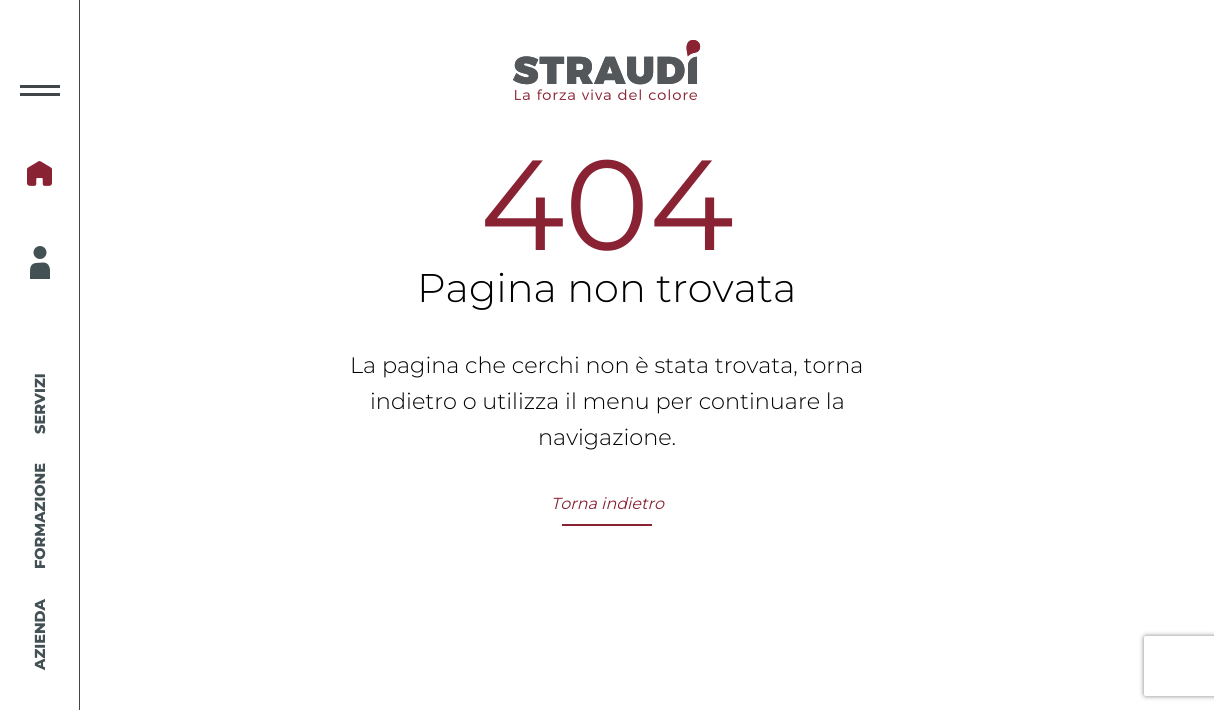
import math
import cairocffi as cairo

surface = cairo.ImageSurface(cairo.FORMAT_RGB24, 1214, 710)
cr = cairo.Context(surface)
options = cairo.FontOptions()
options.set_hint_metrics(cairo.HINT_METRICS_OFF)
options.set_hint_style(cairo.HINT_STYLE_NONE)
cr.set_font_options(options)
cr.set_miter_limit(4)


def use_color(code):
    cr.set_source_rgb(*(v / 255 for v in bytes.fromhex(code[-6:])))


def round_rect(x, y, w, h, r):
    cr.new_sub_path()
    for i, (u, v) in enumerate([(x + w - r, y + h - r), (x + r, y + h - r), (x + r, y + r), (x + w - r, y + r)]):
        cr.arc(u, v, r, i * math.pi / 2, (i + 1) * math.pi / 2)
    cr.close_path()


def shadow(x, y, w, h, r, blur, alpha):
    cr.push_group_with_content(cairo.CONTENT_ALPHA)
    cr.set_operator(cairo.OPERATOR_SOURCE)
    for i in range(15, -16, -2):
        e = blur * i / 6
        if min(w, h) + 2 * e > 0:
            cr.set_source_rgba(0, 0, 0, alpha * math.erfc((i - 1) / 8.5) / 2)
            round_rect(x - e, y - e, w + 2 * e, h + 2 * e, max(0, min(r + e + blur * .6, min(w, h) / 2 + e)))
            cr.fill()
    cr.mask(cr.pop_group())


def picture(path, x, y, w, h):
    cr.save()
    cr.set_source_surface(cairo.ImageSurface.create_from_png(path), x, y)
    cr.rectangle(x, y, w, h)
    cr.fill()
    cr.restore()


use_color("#ffffff")
cr.paint()
picture("img1.png", 513, 40, 188, 60)
use_color("#42454a")
cr.rectangle(79, 0, 1, 710)
cr.fill()
cr.rectangle(20, 85, 40, 3)
cr.fill()
cr.rectangle(20, 93, 40, 3)
cr.fill()
picture("img2.png", 27, 161, 25, 25)
use_color("#445154")
cr.arc(40, 252.5, 6.5, 0, 2 * math.pi)
cr.fill()
cr.save()
cr.rectangle(30, 246, 20, 33)
cr.clip()
cr.new_path()
cr.move_to(43, 262.5)
cr.line_to(35.5, 263)
cr.curve_to(30, 264, 30, 268.5, 30, 273)
cr.line_to(30, 279.5)
cr.line_to(50, 279.5)
cr.curve_to(50, 274, 52, 262.5, 43, 262.5)
cr.close_path()
cr.fill()
cr.restore()
cr.select_font_face("Montserrat ExtraBold")
cr.set_font_size(14.5)
cr.save()
cr.translate(45, 434)
cr.rotate(-90 * math.pi / 180)
cr.move_to(0, 0)
cr.show_text("SERVIZI")
cr.restore()
cr.save()
cr.translate(45, 569)
cr.rotate(-90 * math.pi / 180)
cr.move_to(0, 0)
cr.show_text("FORMAZIONE")
cr.restore()
cr.save()
cr.translate(45, 670)
cr.rotate(-90 * math.pi / 180)
cr.move_to(0, 0)
cr.show_text("AZIENDA")
cr.restore()
cr.select_font_face("Montserrat")
cr.set_font_size(128)
use_color("#892233")
cr.move_to(480, 250)
cr.show_text("404")
cr.select_font_face("Montserrat Light")
cr.set_font_size(40)
use_color("#000000")
cr.move_to(417, 302)
cr.show_text("Pagina non trovata")
cr.set_font_size(22.4)
cr.move_to(350, 373)
cr.show_text("La pagina che cerchi non è stata trovata, torna")
cr.move_to(370, 409)
cr.show_text("indietro o utilizza il menu per continuare la")
cr.move_to(538, 445)
cr.show_text("navigazione.")
cr.select_font_face("Montserrat", cairo.FONT_SLANT_ITALIC)
cr.set_font_size(16)
use_color("#892233")
cr.move_to(551, 509)
cr.show_text("Torna indietro")
cr.rectangle(562, 524, 90, 2)
cr.fill()
cr.save()
cr.set_fill_rule(cairo.FILL_RULE_EVEN_ODD)
cr.new_path()
cr.move_to(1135, 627)
cr.line_to(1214, 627)
cr.line_to(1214, 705)
cr.line_to(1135, 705)
cr.close_path()
cr.move_to(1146, 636)
cr.line_to(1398, 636)
cr.curve_to(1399, 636, 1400, 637, 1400, 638)
cr.line_to(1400, 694)
cr.curve_to(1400, 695, 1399, 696, 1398, 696)
cr.line_to(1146, 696)
cr.curve_to(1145, 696, 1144, 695, 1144, 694)
cr.line_to(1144, 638)
cr.curve_to(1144, 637, 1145, 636, 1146, 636)
cr.close_path()
cr.clip()
use_color("#808080")
shadow(1144, 636, 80, 60, 2, 2.5, 1)
cr.restore()
surface.write_to_png("result.png")
